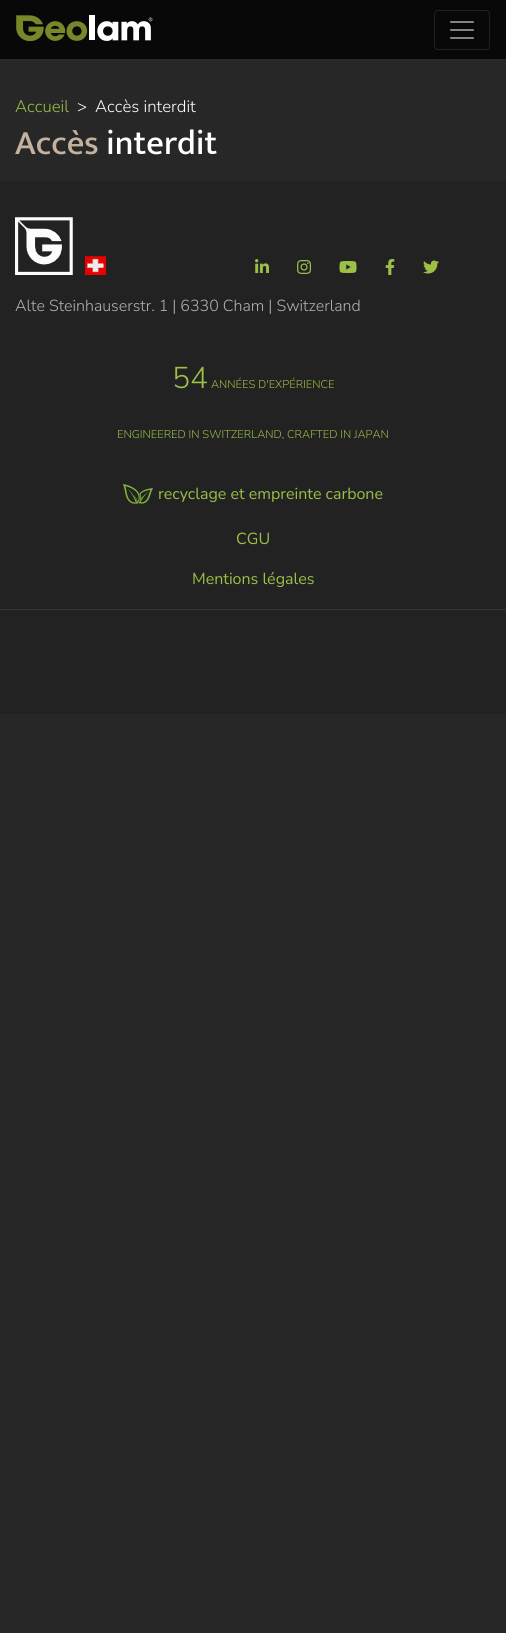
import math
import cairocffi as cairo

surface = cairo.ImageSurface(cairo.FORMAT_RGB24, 506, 1633)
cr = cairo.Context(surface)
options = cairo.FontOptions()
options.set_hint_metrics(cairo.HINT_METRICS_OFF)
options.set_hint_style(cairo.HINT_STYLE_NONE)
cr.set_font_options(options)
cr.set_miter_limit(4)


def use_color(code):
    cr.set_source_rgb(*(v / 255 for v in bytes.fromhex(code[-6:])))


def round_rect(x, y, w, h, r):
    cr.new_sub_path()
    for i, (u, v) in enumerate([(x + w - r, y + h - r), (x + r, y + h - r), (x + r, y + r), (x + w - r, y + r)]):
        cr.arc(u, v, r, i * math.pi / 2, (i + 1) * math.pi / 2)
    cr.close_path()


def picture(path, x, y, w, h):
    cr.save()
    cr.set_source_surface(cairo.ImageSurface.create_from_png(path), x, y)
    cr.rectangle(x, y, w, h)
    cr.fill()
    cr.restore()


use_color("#272727")
cr.paint()
use_color("#080808")
cr.rectangle(0, 0, 506, 59)
cr.fill()
picture("img1.png", 16, 15, 137, 26)
round_rect(434.5, 10.5, 55, 39, 3.5)
use_color("#212121")
cr.set_line_width(1)
cr.stroke()
picture("img2.png", 450, 21, 24, 18)
cr.select_font_face("Nunito Sans Light")
cr.set_font_size(16.75)
use_color("#9cbf48")
cr.move_to(15, 112)
cr.show_text("Accueil")
use_color("#ffffff")
cr.move_to(77, 112)
cr.show_text(">")
cr.move_to(95, 112)
cr.show_text("Accès interdit")
cr.select_font_face("Mukta Mahee Medium")
cr.set_font_size(34.5)
use_color("#c4b29e")
cr.move_to(15, 154)
cr.show_text("Accès")
use_color("#ffffff")
cr.move_to(106, 154)
cr.show_text("interdit")
use_color("#212221")
cr.rectangle(0, 181, 506, 533)
cr.fill()
picture("img3.png", 15, 217, 91, 58)
picture("img4.png", 255, 259, 14, 14)
picture("img5.png", 297, 260, 15, 14)
picture("img6.png", 339, 261, 18, 12)
picture("img7.png", 385, 259, 10, 16)
picture("img8.png", 423, 260, 16, 14)
cr.select_font_face("Nunito Sans Light")
cr.set_font_size(16)
use_color("#b1b2b1")
cr.move_to(15, 311)
cr.show_text("Alte Steinhauserstr. 1 | 6330 Cham | Switzerland")
cr.set_font_size(30)
use_color("#9cbf48")
cr.move_to(172, 388)
cr.show_text("54")
cr.set_font_size(11.2)
cr.move_to(211, 388)
cr.show_text("ANNÉES D'EXPÉRIENCE")
cr.move_to(117, 438)
cr.show_text("ENGINEERED IN SWITZERLAND, CRAFTED IN JAPAN")
picture("img9.png", 123, 484, 30, 20)
cr.select_font_face("Nunito Sans")
cr.set_font_size(16)
cr.move_to(158, 499)
cr.show_text("recyclage et empreinte carbone")
cr.move_to(236, 544)
cr.show_text("CGU")
cr.move_to(192, 584)
cr.show_text("Mentions légales")
use_color("#343434")
cr.rectangle(0, 609, 506, 1)
cr.fill()
surface.write_to_png("result.png")
